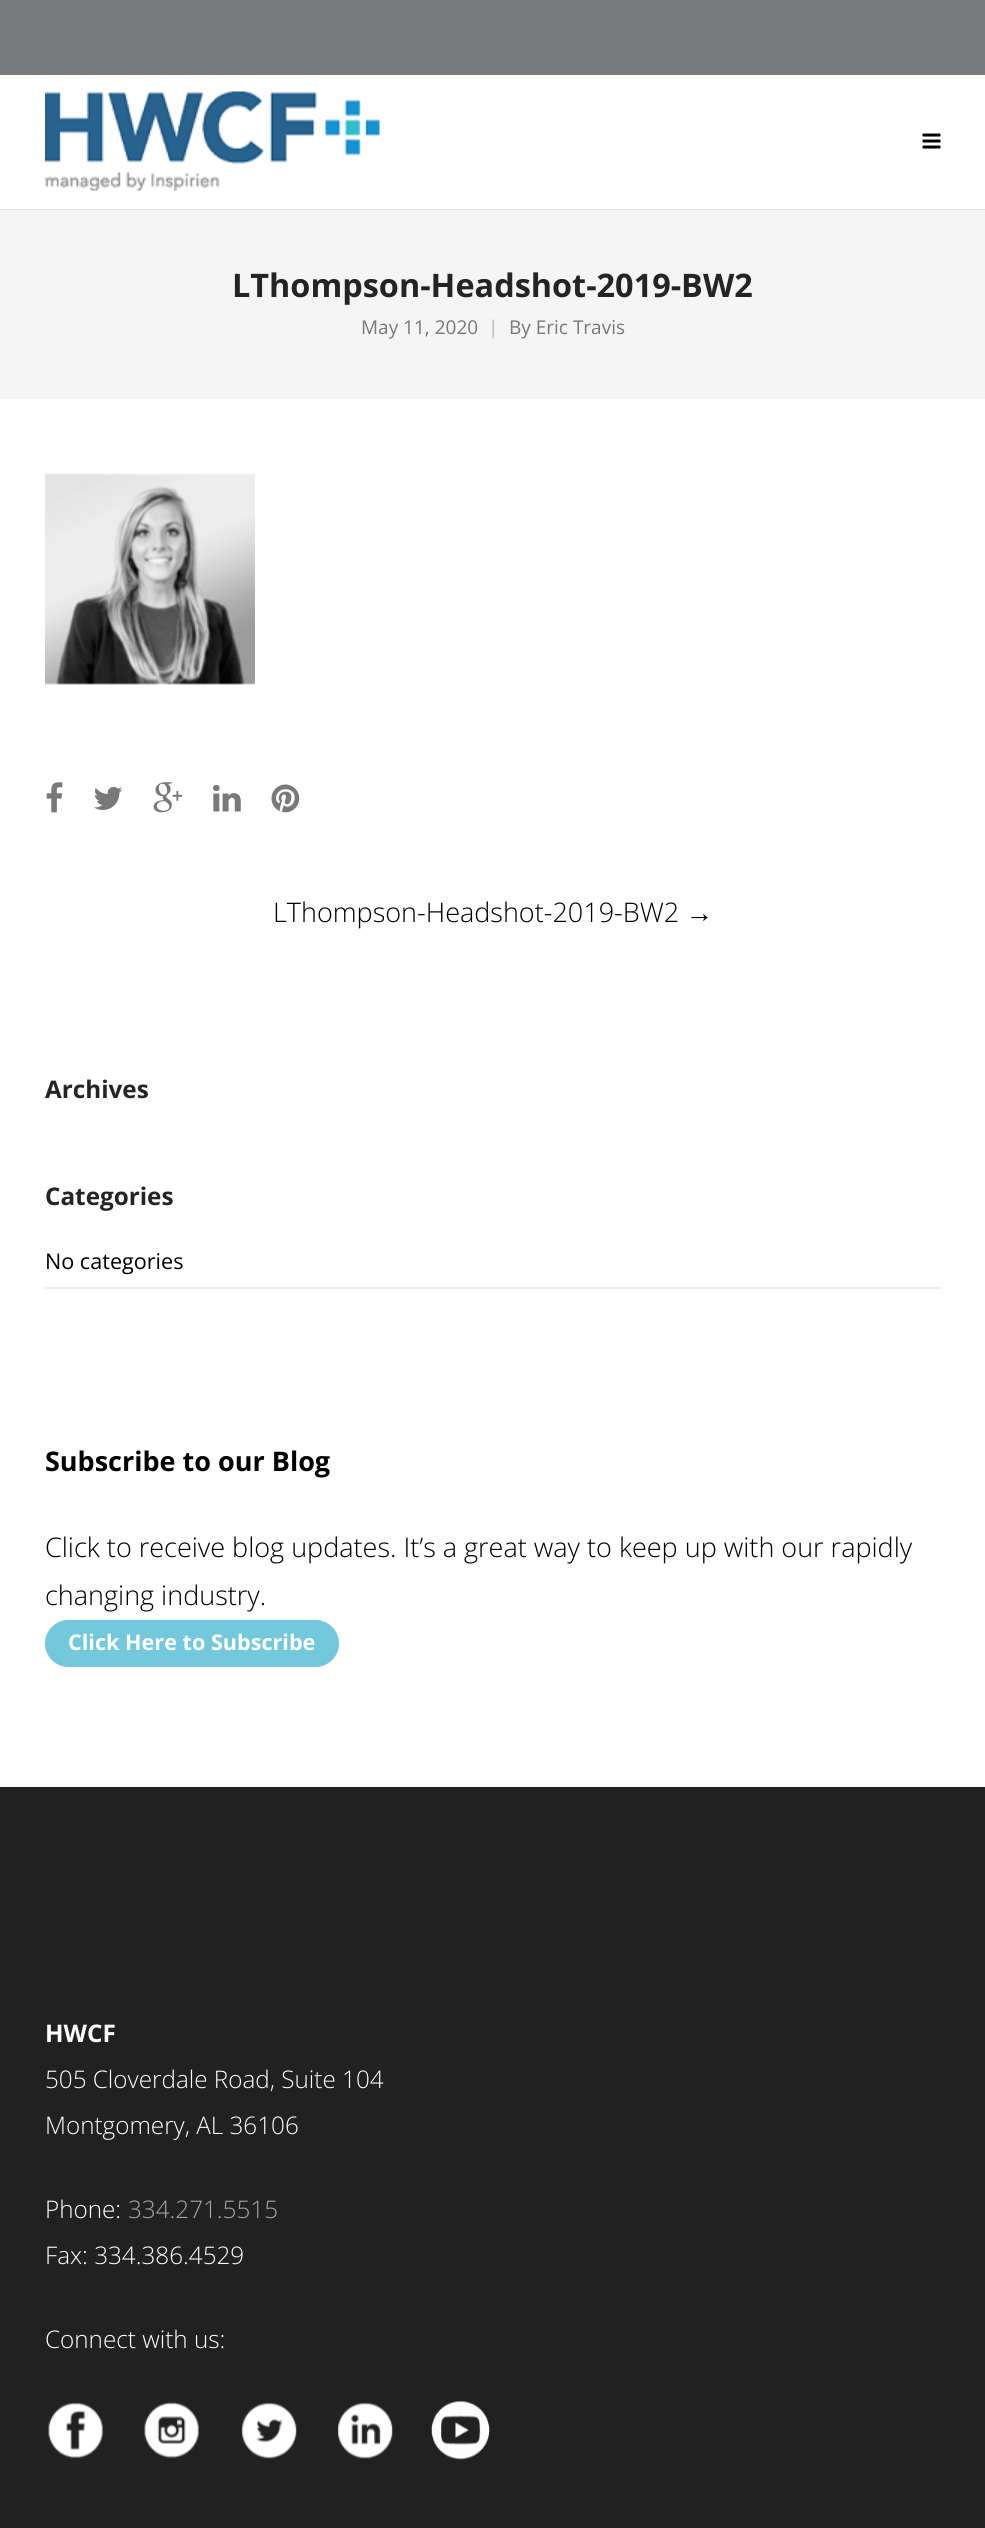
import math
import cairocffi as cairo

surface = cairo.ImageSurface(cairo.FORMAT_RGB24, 985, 2528)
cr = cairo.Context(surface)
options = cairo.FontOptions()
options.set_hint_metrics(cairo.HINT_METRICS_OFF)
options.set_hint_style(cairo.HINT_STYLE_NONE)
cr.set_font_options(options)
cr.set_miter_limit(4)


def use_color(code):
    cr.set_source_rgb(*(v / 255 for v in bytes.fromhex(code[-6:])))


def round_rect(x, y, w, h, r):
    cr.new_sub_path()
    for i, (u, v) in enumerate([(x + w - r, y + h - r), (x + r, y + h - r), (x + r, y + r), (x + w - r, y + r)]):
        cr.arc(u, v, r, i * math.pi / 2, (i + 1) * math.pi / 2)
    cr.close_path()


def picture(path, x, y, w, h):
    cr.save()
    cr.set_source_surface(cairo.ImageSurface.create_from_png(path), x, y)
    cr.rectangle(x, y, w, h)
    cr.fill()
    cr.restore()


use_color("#ffffff")
cr.paint()
use_color("#797a7d")
cr.rectangle(0, 0, 985, 75)
cr.fill()
use_color("#f5f5f5")
cr.rectangle(0, 209, 985, 190)
cr.fill()
cr.set_source_rgba(0, 0, 0, 0.1)
cr.new_path()
cr.move_to(0, 208)
cr.line_to(0, 210)
cr.line_to(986, 210)
cr.line_to(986, 75)
cr.line_to(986, 208)
cr.close_path()
cr.fill()
use_color("#ffffff")
cr.rectangle(0, 208, 985, 1)
cr.fill()
picture("img1.png", 45, 91, 335, 100)
picture("img2.png", 922, 133, 19, 16)
cr.select_font_face("Open Sans", cairo.FONT_SLANT_NORMAL, cairo.FONT_WEIGHT_BOLD)
cr.set_font_size(32.4)
use_color("#242424")
cr.move_to(232, 297)
cr.show_text("LThompson-Headshot-2019-BW2")
cr.select_font_face("Open Sans")
cr.set_font_size(19)
use_color("#787878")
cr.move_to(361, 334)
cr.show_text("May 11, 2020")
use_color("#b6b6b6")
cr.move_to(488, 334)
cr.show_text("|")
use_color("#787878")
cr.move_to(509, 334)
cr.show_text("By Eric Travis")
picture("img3.png", 45, 473, 210, 212)
picture("img4.png", 46, 782, 17, 31)
picture("img5.png", 94, 786, 29, 24)
picture("img6.png", 153, 782, 30, 31)
picture("img7.png", 213, 784, 28, 28)
picture("img8.png", 271, 784, 29, 29)
cr.select_font_face("Open Sans Light")
cr.set_font_size(27)
use_color("#000000")
cr.move_to(273, 922)
cr.show_text("LThompson-Headshot-2019-BW2")
cr.select_font_face("Liberation Serif")
cr.move_to(686, 922)
cr.show_text("→")
cr.select_font_face("Open Sans", cairo.FONT_SLANT_NORMAL, cairo.FONT_WEIGHT_BOLD)
cr.set_font_size(24.25)
use_color("#242424")
cr.move_to(45, 1098)
cr.show_text("Archives")
cr.move_to(45, 1205)
cr.show_text("Categories")
use_color("#ededed")
cr.rectangle(45, 1287, 896, 2)
cr.fill()
cr.select_font_face("Open Sans")
cr.set_font_size(21.6)
use_color("#000000")
cr.move_to(45, 1269)
cr.show_text("No categories")
cr.select_font_face("Open Sans", cairo.FONT_SLANT_NORMAL, cairo.FONT_WEIGHT_BOLD)
cr.set_font_size(27)
cr.move_to(45, 1471)
cr.show_text("Subscribe to our Blog")
cr.select_font_face("Open Sans Light")
cr.move_to(45, 1557)
cr.show_text("Click to receive blog updates. It’s a great way to keep up with our rapidly")
cr.move_to(45, 1605)
cr.show_text("changing industry.")
use_color("#73c9db")
round_rect(46, 1621, 292, 45, 22.5)
cr.fill_preserve()
cr.stroke()
cr.select_font_face("Open Sans", cairo.FONT_SLANT_NORMAL, cairo.FONT_WEIGHT_BOLD)
cr.set_font_size(21.6)
use_color("#ffffff")
cr.move_to(68, 1650)
cr.show_text("Click Here to Subscribe")
use_color("#212121")
cr.rectangle(0, 1787, 985, 741)
cr.fill()
cr.set_font_size(24.25)
use_color("#ffffff")
cr.move_to(45, 2042)
cr.show_text("HWCF")
cr.select_font_face("Open Sans Light")
cr.move_to(45, 2088)
cr.show_text("505 Cloverdale Road, Suite 104")
cr.move_to(45, 2134)
cr.show_text("Montgomery, AL 36106")
cr.move_to(45, 2218)
cr.show_text("Phone:")
use_color("#a5a5a5")
cr.move_to(128, 2218)
cr.show_text("334.271.5515")
use_color("#ffffff")
cr.move_to(45, 2264)
cr.show_text("Fax: 334.386.4529")
cr.move_to(45, 2348)
cr.show_text("Connect with us:")
picture("img9.png", 48, 2402, 55, 57)
picture("img10.png", 144, 2402, 55, 57)
picture("img11.png", 241, 2402, 56, 57)
picture("img12.png", 337, 2402, 56, 57)
picture("img13.png", 431, 2400, 59, 60)
surface.write_to_png("result.png")
